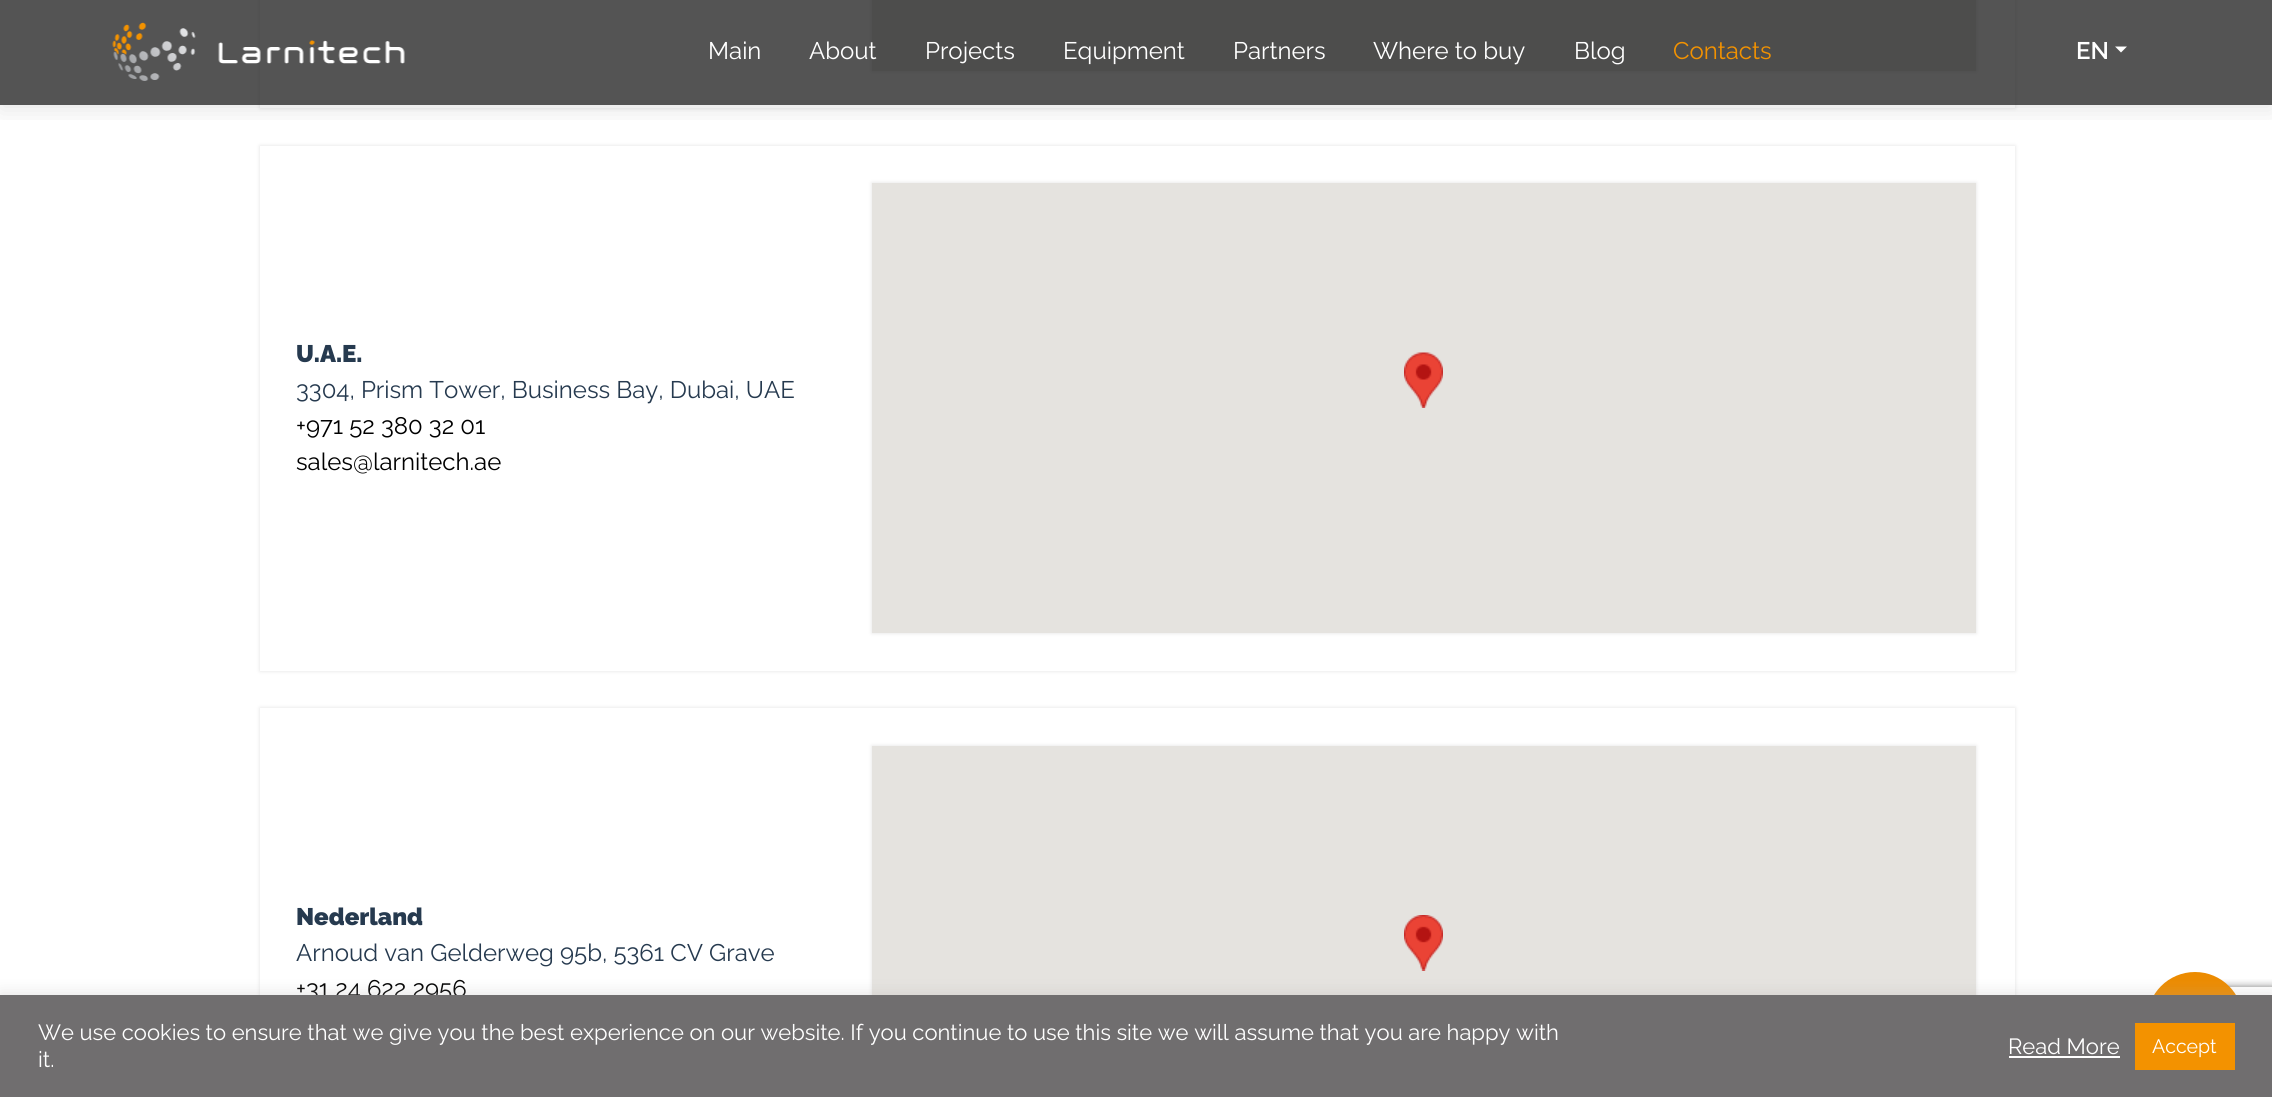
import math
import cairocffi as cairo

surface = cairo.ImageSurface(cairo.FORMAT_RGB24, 2272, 1097)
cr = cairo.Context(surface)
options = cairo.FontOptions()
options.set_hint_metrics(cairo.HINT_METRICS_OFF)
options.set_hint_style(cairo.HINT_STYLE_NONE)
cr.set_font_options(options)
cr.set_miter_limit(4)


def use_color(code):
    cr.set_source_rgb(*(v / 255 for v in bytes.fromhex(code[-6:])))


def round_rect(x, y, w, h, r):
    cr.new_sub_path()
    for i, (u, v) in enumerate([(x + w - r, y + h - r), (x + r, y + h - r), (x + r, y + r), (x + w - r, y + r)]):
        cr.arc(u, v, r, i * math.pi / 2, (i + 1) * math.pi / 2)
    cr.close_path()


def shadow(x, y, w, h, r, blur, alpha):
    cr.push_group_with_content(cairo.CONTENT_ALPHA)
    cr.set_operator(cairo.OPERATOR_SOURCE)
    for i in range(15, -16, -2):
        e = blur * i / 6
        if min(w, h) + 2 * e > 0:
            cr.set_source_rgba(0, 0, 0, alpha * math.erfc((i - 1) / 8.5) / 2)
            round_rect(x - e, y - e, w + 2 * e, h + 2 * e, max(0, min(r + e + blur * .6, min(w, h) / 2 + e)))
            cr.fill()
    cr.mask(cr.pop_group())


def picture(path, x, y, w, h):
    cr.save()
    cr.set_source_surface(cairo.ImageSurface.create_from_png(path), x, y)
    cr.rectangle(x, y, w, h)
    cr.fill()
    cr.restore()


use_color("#ffffff")
cr.paint()
cr.save()
cr.set_fill_rule(cairo.FILL_RULE_EVEN_ODD)
cr.new_path()
cr.move_to(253, 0)
cr.line_to(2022, 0)
cr.line_to(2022, 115)
cr.line_to(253, 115)
cr.close_path()
cr.move_to(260, -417)
cr.line_to(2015, -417)
cr.line_to(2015, 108)
cr.line_to(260, 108)
cr.close_path()
cr.clip()
use_color("#e1e1e1")
shadow(260, -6, 1755, 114, 0, 2, 1)
cr.restore()
use_color("#e1e1e1")
shadow(872, -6, 1104, 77, 0, 2, 1)
use_color("#e5e3df")
cr.rectangle(872, 0, 1104, 71)
cr.fill()
cr.save()
cr.rectangle(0, 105, 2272, 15)
cr.clip()
use_color("#000000")
shadow(0, 2, 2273, 108, 0, 12, 0.1)
cr.restore()
cr.set_source_rgba(0.106, 0.106, 0.106, 0.75)
cr.rectangle(0, 0, 2272, 105)
cr.fill()
picture("img1.png", 112, 22, 293, 59)
cr.select_font_face("Raleway")
cr.set_font_size(24)
use_color("#ffffff")
cr.move_to(708, 59)
cr.show_text("Main")
cr.move_to(809, 59)
cr.show_text("About")
cr.move_to(925, 59)
cr.show_text("Projects")
cr.move_to(1063, 59)
cr.show_text("Equipment")
cr.move_to(1233, 59)
cr.show_text("Partners")
cr.move_to(1373, 59)
cr.show_text("Where to buy")
cr.move_to(1574, 59)
cr.show_text("Blog")
use_color("#f39200")
cr.move_to(1673, 59)
cr.show_text("Contacts")
cr.select_font_face("Raleway SemiBold")
use_color("#ffffff")
cr.move_to(2076, 59)
cr.show_text("EN")
cr.new_path()
cr.move_to(2115, 46.5)
cr.line_to(2127, 46.5)
cr.line_to(2121, 52.5)
cr.close_path()
cr.fill()
cr.save()
cr.set_fill_rule(cairo.FILL_RULE_EVEN_ODD)
cr.new_path()
cr.move_to(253, 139)
cr.line_to(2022, 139)
cr.line_to(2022, 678)
cr.line_to(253, 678)
cr.close_path()
cr.move_to(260, 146)
cr.line_to(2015, 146)
cr.line_to(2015, 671)
cr.line_to(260, 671)
cr.close_path()
cr.clip()
use_color("#e1e1e1")
shadow(260, 146, 1755, 525, 0, 2, 1)
cr.restore()
cr.select_font_face("Raleway Black")
use_color("#263a4f")
cr.move_to(296, 362)
cr.show_text("U.A.E.")
cr.select_font_face("Raleway")
cr.move_to(296, 398)
cr.show_text("3304, Prism Tower, Business Bay, Dubai, UAE")
use_color("#000000")
cr.move_to(296, 434)
cr.show_text("+971 52 380 32 01")
cr.move_to(296, 470)
cr.show_text("sales@larnitech.ae")
use_color("#e1e1e1")
shadow(872, 183, 1104, 450, 0, 2, 1)
use_color("#e5e3df")
cr.rectangle(872, 183, 1104, 450)
cr.fill()
picture("img2.png", 1404, 352, 39, 56)
cr.save()
cr.set_fill_rule(cairo.FILL_RULE_EVEN_ODD)
cr.new_path()
cr.move_to(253, 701)
cr.line_to(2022, 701)
cr.line_to(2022, 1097)
cr.line_to(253, 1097)
cr.close_path()
cr.move_to(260, 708)
cr.line_to(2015, 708)
cr.line_to(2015, 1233)
cr.line_to(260, 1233)
cr.close_path()
cr.clip()
use_color("#e1e1e1")
shadow(260, 708, 1755, 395, 0, 2, 1)
cr.restore()
cr.select_font_face("Raleway Black")
use_color("#263a4f")
cr.move_to(296, 925)
cr.show_text("Nederland")
cr.select_font_face("Raleway")
cr.move_to(296, 961)
cr.show_text("Arnoud van Gelderweg 95b, 5361 CV Grave")
use_color("#000000")
cr.move_to(296, 997)
cr.show_text("+31 24 622 2956")
use_color("#e1e1e1")
shadow(872, 746, 1104, 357, 0, 2, 1)
use_color("#e5e3df")
cr.rectangle(872, 746, 1104, 249)
cr.fill()
picture("img3.png", 1404, 915, 39, 56)
cr.save()
cr.rectangle(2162, 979, 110, 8)
cr.clip()
use_color("#808080")
shadow(2168, 987, 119, 90, 3, 4, 1)
cr.restore()
use_color("#ec8b00")
cr.arc(2195, 1020, 48, 0, 2 * math.pi)
cr.fill()
use_color("#acabab")
shadow(0, 993, 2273, 104, 0, 7.5, 0.3)
use_color("#706e6f")
cr.rectangle(0, 995, 2272, 102)
cr.fill()
cr.set_font_size(22)
use_color("#ffffff")
cr.move_to(38, 1040)
cr.show_text("We use cookies to ensure that we give you the best experience on our website. If you continue to use this site we will assume that you are happy with")
cr.move_to(38, 1067)
cr.show_text("it.")
cr.move_to(2008, 1054)
cr.show_text("Read More")
cr.rectangle(2009, 1056, 111, 2)
cr.fill()
use_color("#f39200")
cr.rectangle(2135, 1023, 100, 47)
cr.fill()
cr.set_font_size(19.5)
use_color("#ffffff")
cr.move_to(2152, 1053)
cr.show_text("Accept")
surface.write_to_png("result.png")
